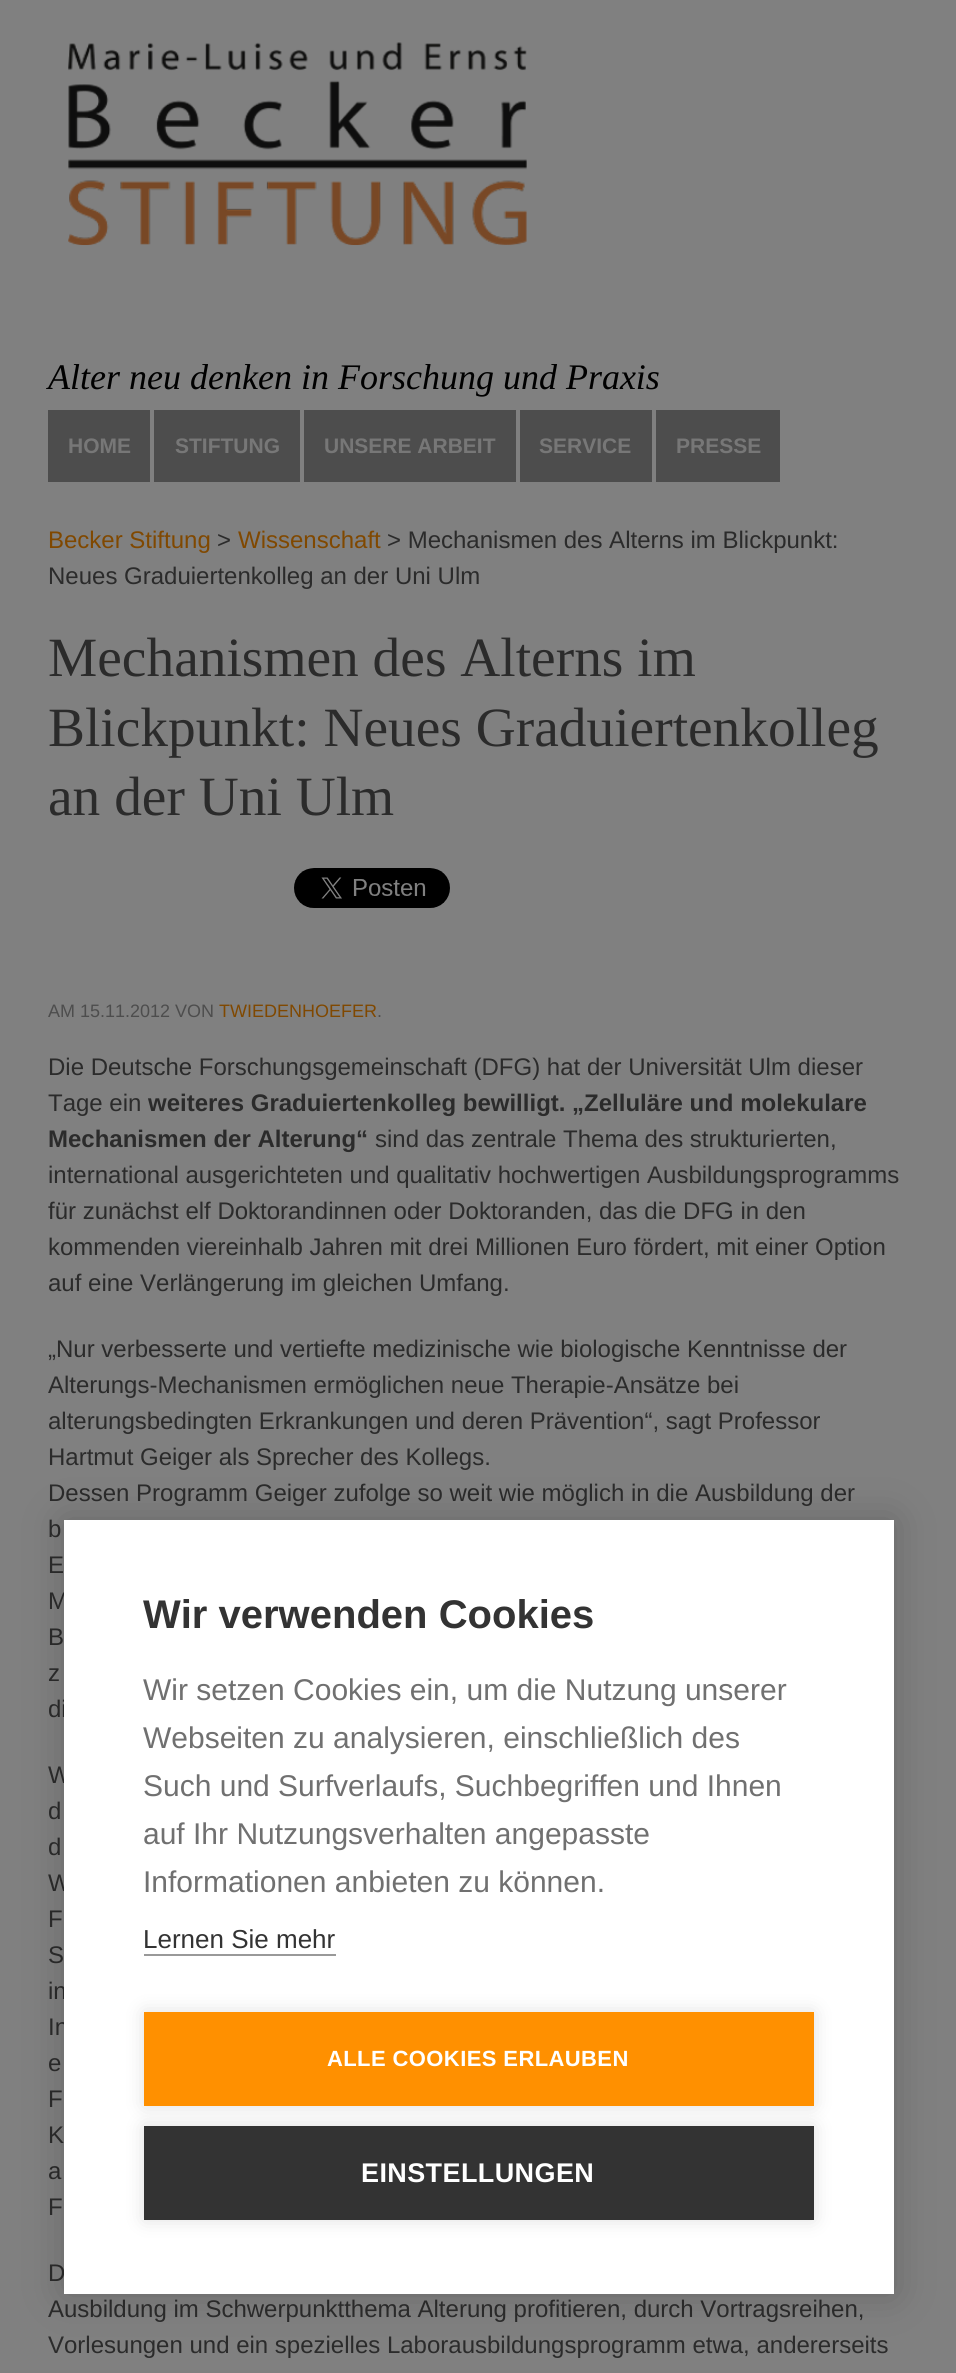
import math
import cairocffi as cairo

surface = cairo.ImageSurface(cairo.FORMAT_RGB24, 956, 2373)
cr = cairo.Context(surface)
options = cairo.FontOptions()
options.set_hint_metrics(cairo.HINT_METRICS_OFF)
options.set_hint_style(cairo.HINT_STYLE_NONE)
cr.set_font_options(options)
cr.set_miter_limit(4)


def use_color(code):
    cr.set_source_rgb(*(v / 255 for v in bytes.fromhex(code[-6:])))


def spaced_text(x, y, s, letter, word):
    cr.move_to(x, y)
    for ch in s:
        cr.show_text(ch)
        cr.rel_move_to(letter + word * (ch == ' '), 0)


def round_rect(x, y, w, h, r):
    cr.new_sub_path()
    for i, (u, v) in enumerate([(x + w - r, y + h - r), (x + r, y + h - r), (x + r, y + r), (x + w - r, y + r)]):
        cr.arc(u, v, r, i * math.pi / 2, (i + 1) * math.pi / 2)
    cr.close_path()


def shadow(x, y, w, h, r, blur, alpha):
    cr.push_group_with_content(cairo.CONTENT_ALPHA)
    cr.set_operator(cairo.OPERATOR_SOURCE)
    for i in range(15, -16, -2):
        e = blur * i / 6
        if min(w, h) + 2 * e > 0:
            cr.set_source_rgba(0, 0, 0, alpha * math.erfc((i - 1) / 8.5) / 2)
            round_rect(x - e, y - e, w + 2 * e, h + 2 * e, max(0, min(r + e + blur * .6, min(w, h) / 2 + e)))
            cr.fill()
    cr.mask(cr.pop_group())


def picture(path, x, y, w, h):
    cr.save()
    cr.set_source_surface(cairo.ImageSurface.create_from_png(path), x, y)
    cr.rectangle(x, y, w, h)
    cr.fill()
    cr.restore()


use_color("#808080")
cr.paint()
picture("img1.png", 68, 42, 459, 204)
cr.select_font_face("Liberation Serif", cairo.FONT_SLANT_ITALIC)
cr.set_font_size(36)
use_color("#000000")
cr.move_to(48, 389)
cr.show_text("Alter neu denken in Forschung und Praxis")
use_color("#4d4d4d")
cr.rectangle(48, 410, 102, 72)
cr.fill()
cr.select_font_face("Liberation Sans", cairo.FONT_SLANT_NORMAL, cairo.FONT_WEIGHT_BOLD)
cr.set_font_size(21)
use_color("#777777")
cr.move_to(68, 453)
cr.show_text("HOME")
use_color("#4d4d4d")
cr.rectangle(154, 410, 146, 72)
cr.fill()
use_color("#777777")
cr.move_to(175, 453)
cr.show_text("STIFTUNG")
use_color("#4d4d4d")
cr.rectangle(304, 410, 212, 72)
cr.fill()
use_color("#777777")
cr.move_to(324, 453)
cr.show_text("UNSERE ARBEIT")
use_color("#4d4d4d")
cr.rectangle(520, 410, 132, 72)
cr.fill()
use_color("#777777")
cr.move_to(539, 453)
cr.show_text("SERVICE")
use_color("#4d4d4d")
cr.rectangle(656, 410, 124, 72)
cr.fill()
use_color("#777777")
cr.move_to(676, 453)
cr.show_text("PRESSE")
cr.select_font_face("Liberation Sans")
cr.set_font_size(24)
use_color("#804800")
cr.move_to(48, 548)
cr.show_text("Becker Stiftung")
use_color("#2b2b2b")
cr.move_to(217, 548)
cr.show_text(">")
use_color("#804800")
cr.move_to(238, 548)
cr.show_text("Wissenschaft")
use_color("#2b2b2b")
cr.move_to(387, 548)
cr.show_text("> Mechanismen des Alterns im Blickpunkt:")
cr.move_to(48, 584)
cr.show_text("Neues Graduiertenkolleg an der Uni Ulm")
cr.select_font_face("Liberation Serif")
cr.set_font_size(55.4)
cr.move_to(48, 676)
cr.show_text("Mechanismen des Alterns im")
cr.move_to(48, 746)
cr.show_text("Blickpunkt: Neues Graduiertenkolleg")
cr.move_to(48, 815)
cr.show_text("an der Uni Ulm")
picture("img2.png", 294, 868, 156, 40)
cr.select_font_face("Liberation Sans")
cr.set_font_size(18)
use_color("#4d4d4d")
cr.move_to(48, 1017)
cr.show_text("AM 15.11.2012 VON")
use_color("#804800")
cr.move_to(219, 1017)
cr.show_text("TWIEDENHOEFER")
use_color("#4d4d4d")
cr.move_to(377, 1017)
cr.show_text(".")
cr.set_font_size(24)
use_color("#2b2b2b")
cr.move_to(48, 1075)
cr.show_text("Die Deutsche Forschungsgemeinschaft (DFG) hat der Universität Ulm dieser")
cr.move_to(48, 1111)
cr.show_text("Tage ein")
cr.select_font_face("Liberation Sans", cairo.FONT_SLANT_NORMAL, cairo.FONT_WEIGHT_BOLD)
cr.move_to(148, 1111)
cr.show_text("weiteres Graduiertenkolleg bewilligt. „Zelluläre und molekulare")
cr.move_to(48, 1147)
cr.show_text("Mechanismen der Alterung“")
cr.select_font_face("Liberation Sans")
cr.move_to(375, 1147)
cr.show_text("sind das zentrale Thema des strukturierten,")
cr.move_to(48, 1183)
cr.show_text("international ausgerichteten und qualitativ hochwertigen Ausbildungsprogramms")
cr.move_to(48, 1219)
cr.show_text("für zunächst elf Doktorandinnen oder Doktoranden, das die DFG in den")
cr.move_to(48, 1255)
cr.show_text("kommenden viereinhalb Jahren mit drei Millionen Euro fördert, mit einer Option")
cr.move_to(48, 1291)
cr.show_text("auf eine Verlängerung im gleichen Umfang.")
cr.move_to(48, 1357)
cr.show_text("„Nur verbesserte und vertiefte medizinische wie biologische Kenntnisse der")
cr.move_to(48, 1393)
cr.show_text("Alterungs-Mechanismen ermöglichen neue Therapie-Ansätze bei")
cr.move_to(48, 1429)
cr.show_text("alterungsbedingten Erkrankungen und deren Prävention“, sagt Professor")
cr.move_to(48, 1465)
cr.show_text("Hartmut Geiger als Sprecher des Kollegs.")
cr.move_to(48, 1501)
cr.show_text("Dessen Programm Geiger zufolge so weit wie möglich in die Ausbildung der")
cr.move_to(48, 1537)
cr.show_text("b")
cr.move_to(48, 1573)
cr.show_text("E")
cr.move_to(48, 1609)
cr.show_text("M")
cr.move_to(48, 1645)
cr.show_text("B")
cr.move_to(48, 1681)
cr.show_text("z")
cr.move_to(48, 1717)
cr.show_text("di")
cr.move_to(48, 1783)
cr.show_text("W")
cr.move_to(48, 1819)
cr.show_text("d")
cr.move_to(48, 1855)
cr.show_text("d")
cr.move_to(48, 1891)
cr.show_text("W")
cr.move_to(48, 1927)
cr.show_text("F")
cr.move_to(48, 1963)
cr.show_text("S")
cr.move_to(48, 1999)
cr.show_text("in")
cr.move_to(48, 2035)
cr.show_text("In")
cr.move_to(48, 2071)
cr.show_text("e")
cr.move_to(48, 2107)
cr.show_text("F")
cr.move_to(48, 2143)
cr.show_text("K")
cr.move_to(48, 2179)
cr.show_text("a")
cr.move_to(48, 2215)
cr.show_text("F")
cr.move_to(48, 2281)
cr.show_text("D")
cr.move_to(48, 2317)
cr.show_text("Ausbildung im Schwerpunktthema Alterung profitieren, durch Vortragsreihen,")
cr.move_to(48, 2353)
cr.show_text("Vorlesungen und ein spezielles Laborausbildungsprogramm etwa, andererseits")
use_color("#000000")
shadow(64, 1520, 830, 774, 0, 20, 0.2)
use_color("#ffffff")
cr.rectangle(64, 1520, 830, 774)
cr.fill()
cr.select_font_face("Liberation Sans", cairo.FONT_SLANT_NORMAL, cairo.FONT_WEIGHT_BOLD)
cr.set_font_size(40)
use_color("#333333")
cr.move_to(143, 1628)
cr.show_text("Wir verwenden Cookies")
cr.select_font_face("Liberation Sans")
cr.set_font_size(30)
use_color("#707070")
cr.move_to(143, 1700)
cr.show_text("Wir setzen Cookies ein, um die Nutzung unserer")
cr.move_to(143, 1748)
cr.show_text("Webseiten zu analysieren, einschließlich des")
cr.move_to(143, 1796)
cr.show_text("Such und Surfverlaufs, Suchbegriffen und Ihnen")
cr.move_to(143, 1844)
cr.show_text("auf Ihr Nutzungsverhalten angepasste")
cr.move_to(143, 1892)
cr.show_text("Informationen anbieten zu können.")
cr.set_font_size(26)
use_color("#333333")
cr.move_to(143, 1948)
cr.show_text("Lernen Sie mehr")
use_color("#999999")
cr.rectangle(144, 1954, 192, 2)
cr.fill()
use_color("#000000")
shadow(144, 2012, 670, 94, 0, 10, 0.12)
use_color("#ff9000")
cr.rectangle(144, 2012, 670, 94)
cr.fill()
cr.select_font_face("Liberation Sans", cairo.FONT_SLANT_NORMAL, cairo.FONT_WEIGHT_BOLD)
cr.set_font_size(22)
use_color("#ffffff")
spaced_text(327, 2066, "ALLE COOKIES ERLAUBEN", 0.4, 0)
use_color("#000000")
shadow(144, 2126, 670, 94, 0, 10, 0.12)
use_color("#333333")
cr.rectangle(144, 2126, 670, 94)
cr.fill()
cr.set_font_size(27)
use_color("#ffffff")
spaced_text(361, 2182, "EINSTELLUNGEN", 0.4, 0)
surface.write_to_png("result.png")
